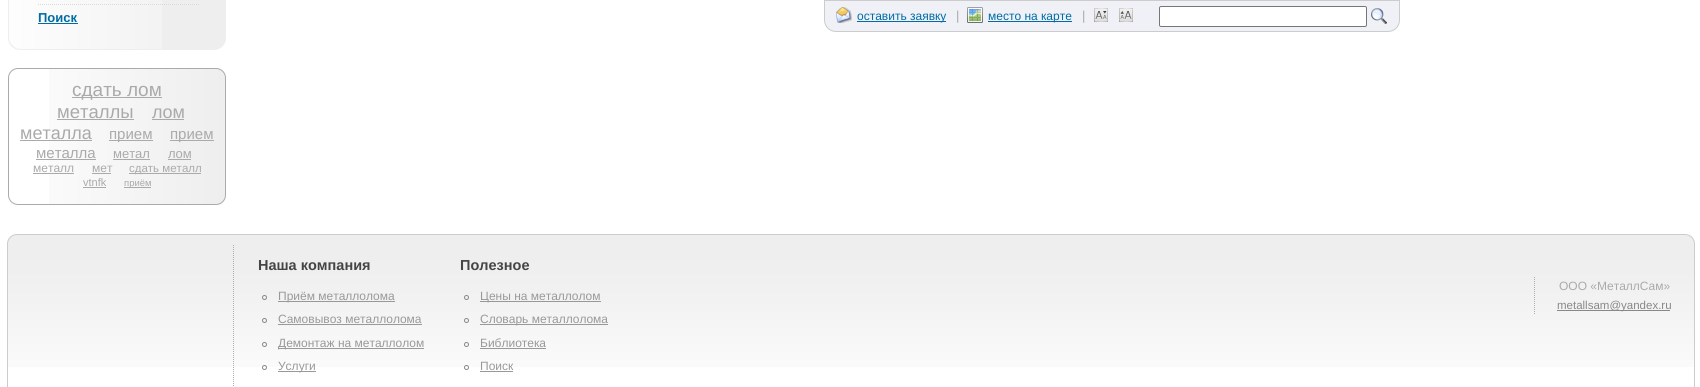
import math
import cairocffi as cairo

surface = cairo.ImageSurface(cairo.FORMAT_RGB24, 1700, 387)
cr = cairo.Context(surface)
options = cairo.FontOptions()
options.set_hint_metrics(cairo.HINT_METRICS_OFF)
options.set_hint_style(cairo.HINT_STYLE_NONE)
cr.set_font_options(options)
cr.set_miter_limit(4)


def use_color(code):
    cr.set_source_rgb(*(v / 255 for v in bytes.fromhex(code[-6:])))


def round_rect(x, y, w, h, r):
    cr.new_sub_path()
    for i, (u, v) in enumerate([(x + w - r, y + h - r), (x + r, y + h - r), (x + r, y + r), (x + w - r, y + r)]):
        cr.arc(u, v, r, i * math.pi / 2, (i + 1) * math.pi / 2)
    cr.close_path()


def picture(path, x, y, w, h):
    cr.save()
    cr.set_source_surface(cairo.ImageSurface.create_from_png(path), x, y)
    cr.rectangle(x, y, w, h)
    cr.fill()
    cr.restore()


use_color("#ffffff")
cr.paint()
use_color("#eeeeee")
round_rect(8, -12, 218, 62, 12)
cr.fill()
picture("img1.png", 9, 0, 153, 49)
cr.new_path()
cr.move_to(38, 4.5)
cr.line_to(200, 4.5)
use_color("#dadada")
cr.set_line_width(1)
cr.set_dash([1, 1])
cr.stroke()
cr.select_font_face("Liberation Sans", cairo.FONT_SLANT_NORMAL, cairo.FONT_WEIGHT_BOLD)
cr.set_font_size(13)
use_color("#006ca5")
cr.move_to(38, 22)
cr.show_text("Поиск")
cr.rectangle(38, 23, 40, 1)
cr.fill()
picture("img2.png", 49, 68, 176, 137)
round_rect(8.5, 68.5, 217, 136, 9.5)
use_color("#aaaaaa")
cr.set_dash([])
cr.stroke()
cr.rectangle(72, 97, 90, 1)
cr.fill()
cr.select_font_face("Liberation Sans")
cr.set_font_size(19)
cr.move_to(72, 96)
cr.show_text("сдать лом")
cr.set_font_size(18.5)
cr.move_to(57, 118)
cr.show_text("металлы")
cr.rectangle(57, 119, 77, 1)
cr.fill()
cr.set_font_size(18)
cr.move_to(152, 118)
cr.show_text("лом")
cr.rectangle(152, 119, 32, 1)
cr.fill()
cr.move_to(20, 139)
cr.show_text("металла")
cr.rectangle(20, 140, 72, 1)
cr.fill()
cr.rectangle(109, 140, 44, 1)
cr.fill()
cr.set_font_size(15)
cr.move_to(109, 139)
cr.show_text("прием")
cr.rectangle(170, 140, 44, 1)
cr.fill()
cr.move_to(170, 139)
cr.show_text("прием")
cr.move_to(36, 158)
cr.show_text("металла")
cr.rectangle(36, 159, 60, 1)
cr.fill()
cr.set_font_size(13)
cr.move_to(113, 158)
cr.show_text("метал")
cr.rectangle(113, 159, 37, 1)
cr.fill()
cr.move_to(168, 158)
cr.show_text("лом")
cr.rectangle(168, 159, 23, 1)
cr.fill()
cr.set_font_size(12)
cr.move_to(33, 172)
cr.show_text("металл")
cr.rectangle(33, 173, 41, 1)
cr.fill()
cr.move_to(92, 172)
cr.show_text("мет")
cr.rectangle(92, 173, 19, 1)
cr.fill()
cr.rectangle(129, 173, 72, 1)
cr.fill()
cr.set_font_size(11.5)
cr.move_to(129, 172)
cr.show_text("сдать металл")
cr.set_font_size(11)
cr.move_to(83, 186)
cr.show_text("vtnfk")
cr.rectangle(83, 187, 23, 1)
cr.fill()
cr.rectangle(124, 187, 27, 1)
cr.fill()
cr.set_font_size(9.5)
cr.move_to(124, 186)
cr.show_text("приём")
use_color("#f0f0f7")
cr.new_path()
cr.move_to(824.5, 0.5)
cr.line_to(1399.5, 0.5)
cr.line_to(1399.5, 20)
cr.curve_to(1399.5, 26.5, 1394.5, 31.5, 1388, 31.5)
cr.line_to(836, 31.5)
cr.curve_to(829.5, 31.5, 824.5, 26.5, 824.5, 20)
cr.close_path()
cr.fill_preserve()
use_color("#cccccc")
cr.stroke()
picture("img3.png", 836, 7, 16, 16)
use_color("#006ca5")
cr.rectangle(857, 21, 89, 1)
cr.fill()
cr.set_font_size(12)
cr.move_to(857, 20)
cr.show_text("оставить заявку")
cr.set_font_size(13)
use_color("#aaaaaa")
cr.move_to(956, 20)
cr.show_text("|")
picture("img4.png", 967, 7, 16, 16)
use_color("#006ca5")
cr.rectangle(988, 21, 84, 1)
cr.fill()
cr.set_font_size(12)
cr.move_to(988, 20)
cr.show_text("место на карте")
cr.set_font_size(13)
use_color("#aaaaaa")
cr.move_to(1082, 20)
cr.show_text("|")
picture("img5.png", 1094, 8, 14, 14)
picture("img6.png", 1119, 8, 14, 14)
use_color("#ffffff")
round_rect(1159.5, 6.5, 207, 20, 1.5)
cr.fill_preserve()
use_color("#767676")
cr.stroke()
picture("img7.png", 1371, 8, 16, 16)
picture("img8.png", 7, 235, 1688, 132)
round_rect(7.5, 234.5, 1687, 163, 9.5)
use_color("#cccccc")
cr.stroke()
cr.new_path()
cr.move_to(233.5, 245)
cr.line_to(233.5, 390)
use_color("#aeaeae")
cr.set_dash([1, 1])
cr.stroke()
cr.select_font_face("Liberation Sans", cairo.FONT_SLANT_NORMAL, cairo.FONT_WEIGHT_BOLD)
cr.set_font_size(14.5)
use_color("#454545")
cr.move_to(258, 270)
cr.show_text("Наша компания")
cr.new_path()
cr.arc(264.5, 297.5, 2, 0, 2 * math.pi)
use_color("#888888")
cr.set_dash([])
cr.stroke()
use_color("#999999")
cr.rectangle(278, 301, 117, 1)
cr.fill()
cr.select_font_face("Liberation Sans")
cr.set_font_size(12)
cr.move_to(278, 300)
cr.show_text("Приём металлолома")
cr.new_path()
cr.arc(264.5, 320.5, 2, 0, 2 * math.pi)
use_color("#888888")
cr.stroke()
use_color("#999999")
cr.move_to(278, 323)
cr.show_text("Самовывоз металлолома")
cr.rectangle(278, 324, 144, 1)
cr.fill()
cr.arc(264.5, 344.5, 2, 0, 2 * math.pi)
use_color("#888888")
cr.stroke()
use_color("#999999")
cr.rectangle(278, 348, 146, 1)
cr.fill()
cr.move_to(278, 347)
cr.show_text("Демонтаж на металлолом")
cr.new_path()
cr.arc(264.5, 367.5, 2, 0, 2 * math.pi)
use_color("#888888")
cr.stroke()
use_color("#999999")
cr.rectangle(278, 371, 38, 1)
cr.fill()
cr.move_to(278, 370)
cr.show_text("Услуги")
cr.select_font_face("Liberation Sans", cairo.FONT_SLANT_NORMAL, cairo.FONT_WEIGHT_BOLD)
cr.set_font_size(14.5)
use_color("#454545")
cr.move_to(460, 270)
cr.show_text("Полезное")
cr.new_path()
cr.arc(466.5, 297.5, 2, 0, 2 * math.pi)
use_color("#888888")
cr.stroke()
use_color("#999999")
cr.rectangle(480, 301, 121, 1)
cr.fill()
cr.select_font_face("Liberation Sans")
cr.set_font_size(12)
cr.move_to(480, 300)
cr.show_text("Цены на металлолом")
cr.new_path()
cr.arc(466.5, 320.5, 2, 0, 2 * math.pi)
use_color("#888888")
cr.stroke()
use_color("#999999")
cr.rectangle(480, 324, 128, 1)
cr.fill()
cr.move_to(480, 323)
cr.show_text("Словарь металлолома")
cr.new_path()
cr.arc(466.5, 344.5, 2, 0, 2 * math.pi)
use_color("#888888")
cr.stroke()
use_color("#999999")
cr.move_to(480, 347)
cr.show_text("Библиотека")
cr.rectangle(480, 348, 66, 1)
cr.fill()
cr.arc(466.5, 367.5, 2, 0, 2 * math.pi)
use_color("#888888")
cr.stroke()
use_color("#999999")
cr.move_to(480, 370)
cr.show_text("Поиск")
cr.rectangle(480, 371, 33, 1)
cr.fill()
cr.new_path()
cr.move_to(1534.5, 277)
cr.line_to(1534.5, 314)
use_color("#aeaeae")
cr.set_dash([1, 1])
cr.stroke()
use_color("#aaaaaa")
cr.move_to(1559, 290)
cr.show_text("ООО «МеталлСам»")
use_color("#888888")
cr.rectangle(1557, 310, 113, 1)
cr.fill()
cr.set_font_size(11.5)
cr.move_to(1557, 309)
cr.show_text("metallsam@yandex.ru")
surface.write_to_png("result.png")
